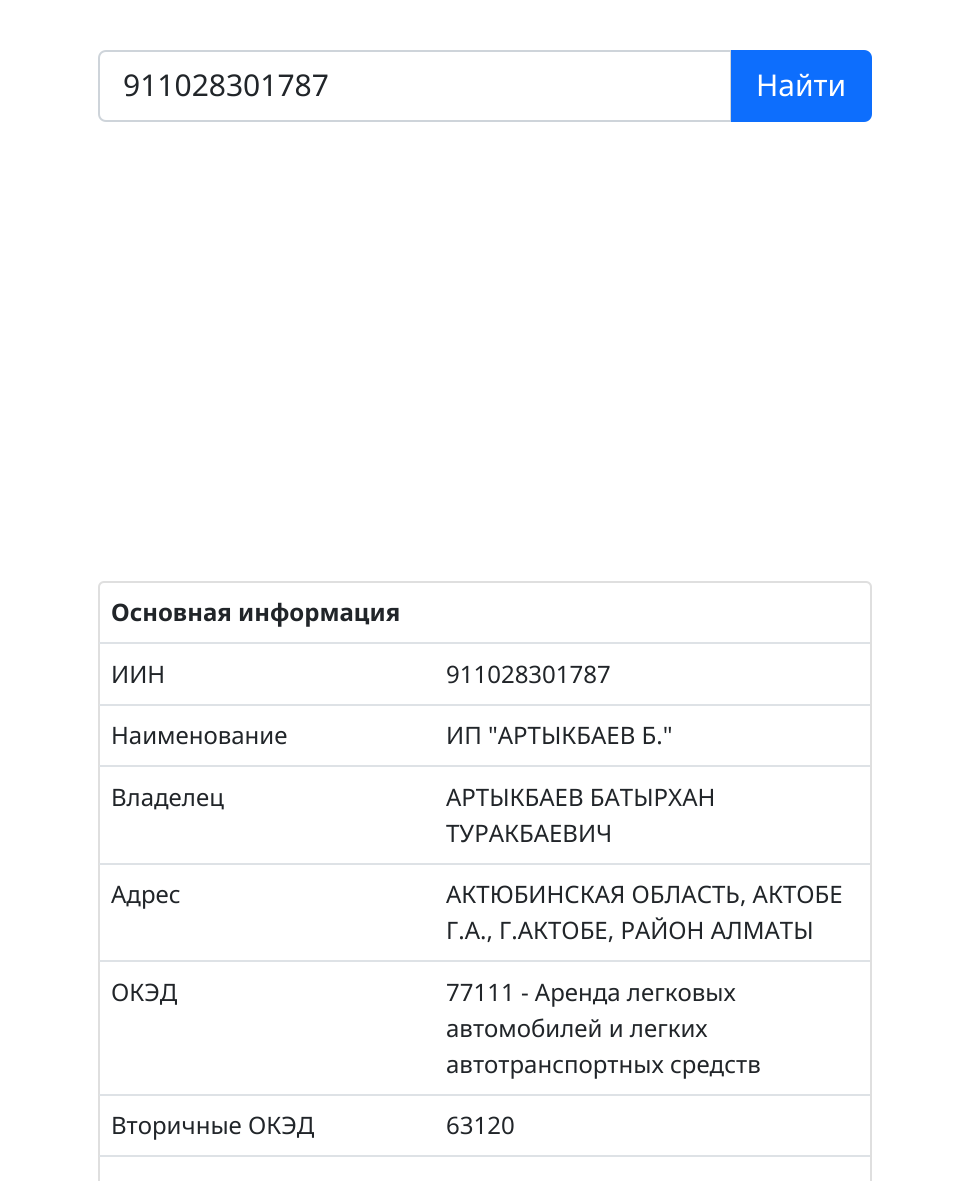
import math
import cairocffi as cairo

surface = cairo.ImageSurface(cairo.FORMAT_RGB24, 969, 1181)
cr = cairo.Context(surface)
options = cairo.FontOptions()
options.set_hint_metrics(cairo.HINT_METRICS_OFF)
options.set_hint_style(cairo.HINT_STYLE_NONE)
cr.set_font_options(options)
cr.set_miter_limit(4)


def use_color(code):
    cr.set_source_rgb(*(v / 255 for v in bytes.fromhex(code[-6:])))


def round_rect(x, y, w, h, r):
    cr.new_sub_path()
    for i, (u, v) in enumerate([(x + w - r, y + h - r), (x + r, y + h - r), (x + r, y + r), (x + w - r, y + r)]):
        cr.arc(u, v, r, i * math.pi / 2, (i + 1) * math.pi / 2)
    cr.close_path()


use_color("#ffffff")
cr.paint()
cr.new_path()
cr.move_to(106, 51)
cr.line_to(731, 51)
cr.line_to(731, 121)
cr.line_to(106, 121)
cr.curve_to(102, 121, 99, 118, 99, 114)
cr.line_to(99, 58)
cr.curve_to(99, 54, 102, 51, 106, 51)
cr.close_path()
use_color("#ced4da")
cr.stroke()
cr.select_font_face("Noto Sans")
cr.set_font_size(30)
use_color("#212529")
cr.move_to(123, 96)
cr.show_text("911028301787")
use_color("#0d6efd")
cr.new_path()
cr.move_to(732, 51)
cr.line_to(864, 51)
cr.curve_to(868, 51, 871, 54, 871, 58)
cr.line_to(871, 114)
cr.curve_to(871, 118, 868, 121, 864, 121)
cr.line_to(732, 121)
cr.close_path()
cr.fill_preserve()
cr.stroke()
use_color("#ffffff")
cr.move_to(756, 96)
cr.show_text("Найти")
round_rect(99, 582, 772, 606, 5)
use_color("#dfdfdf")
cr.stroke()
use_color("#dee2e6")
cr.rectangle(99, 642, 771, 2)
cr.fill()
cr.select_font_face("Noto Sans", cairo.FONT_SLANT_NORMAL, cairo.FONT_WEIGHT_BOLD)
cr.set_font_size(24)
use_color("#212529")
cr.move_to(111, 621)
cr.show_text("Основная информация")
cr.select_font_face("Noto Sans")
cr.move_to(111, 683)
cr.show_text("ИИН")
use_color("#dee2e6")
cr.rectangle(99, 704, 771, 2)
cr.fill()
use_color("#212529")
cr.move_to(446, 683)
cr.show_text("911028301787")
cr.move_to(111, 744)
cr.show_text("Наименование")
use_color("#dee2e6")
cr.rectangle(99, 765, 771, 2)
cr.fill()
use_color("#212529")
cr.move_to(446, 744)
cr.show_text("ИП \"АРТЫКБАЕВ Б.\"")
cr.move_to(111, 806)
cr.show_text("Владелец")
use_color("#dee2e6")
cr.rectangle(99, 863, 771, 2)
cr.fill()
use_color("#212529")
cr.move_to(446, 806)
cr.show_text("АРТЫКБАЕВ БАТЫРХАН")
cr.move_to(446, 842)
cr.show_text("ТУРАКБАЕВИЧ")
cr.move_to(111, 903)
cr.show_text("Адрес")
use_color("#dee2e6")
cr.rectangle(99, 960, 771, 2)
cr.fill()
use_color("#212529")
cr.move_to(446, 903)
cr.show_text("АКТЮБИНСКАЯ ОБЛАСТЬ, АКТОБЕ")
cr.move_to(446, 939)
cr.show_text("Г.А., Г.АКТОБЕ, РАЙОН АЛМАТЫ")
cr.move_to(111, 1001)
cr.show_text("ОКЭД")
use_color("#dee2e6")
cr.rectangle(99, 1094, 771, 2)
cr.fill()
use_color("#212529")
cr.move_to(446, 1001)
cr.show_text("77111 - Аренда легковых")
cr.move_to(446, 1037)
cr.show_text("автомобилей и легких")
cr.move_to(446, 1073)
cr.show_text("автотранспортных средств")
cr.move_to(111, 1134)
cr.show_text("Вторичные ОКЭД")
use_color("#dee2e6")
cr.rectangle(99, 1155, 771, 2)
cr.fill()
use_color("#212529")
cr.move_to(446, 1134)
cr.show_text("63120")
surface.write_to_png("result.png")
